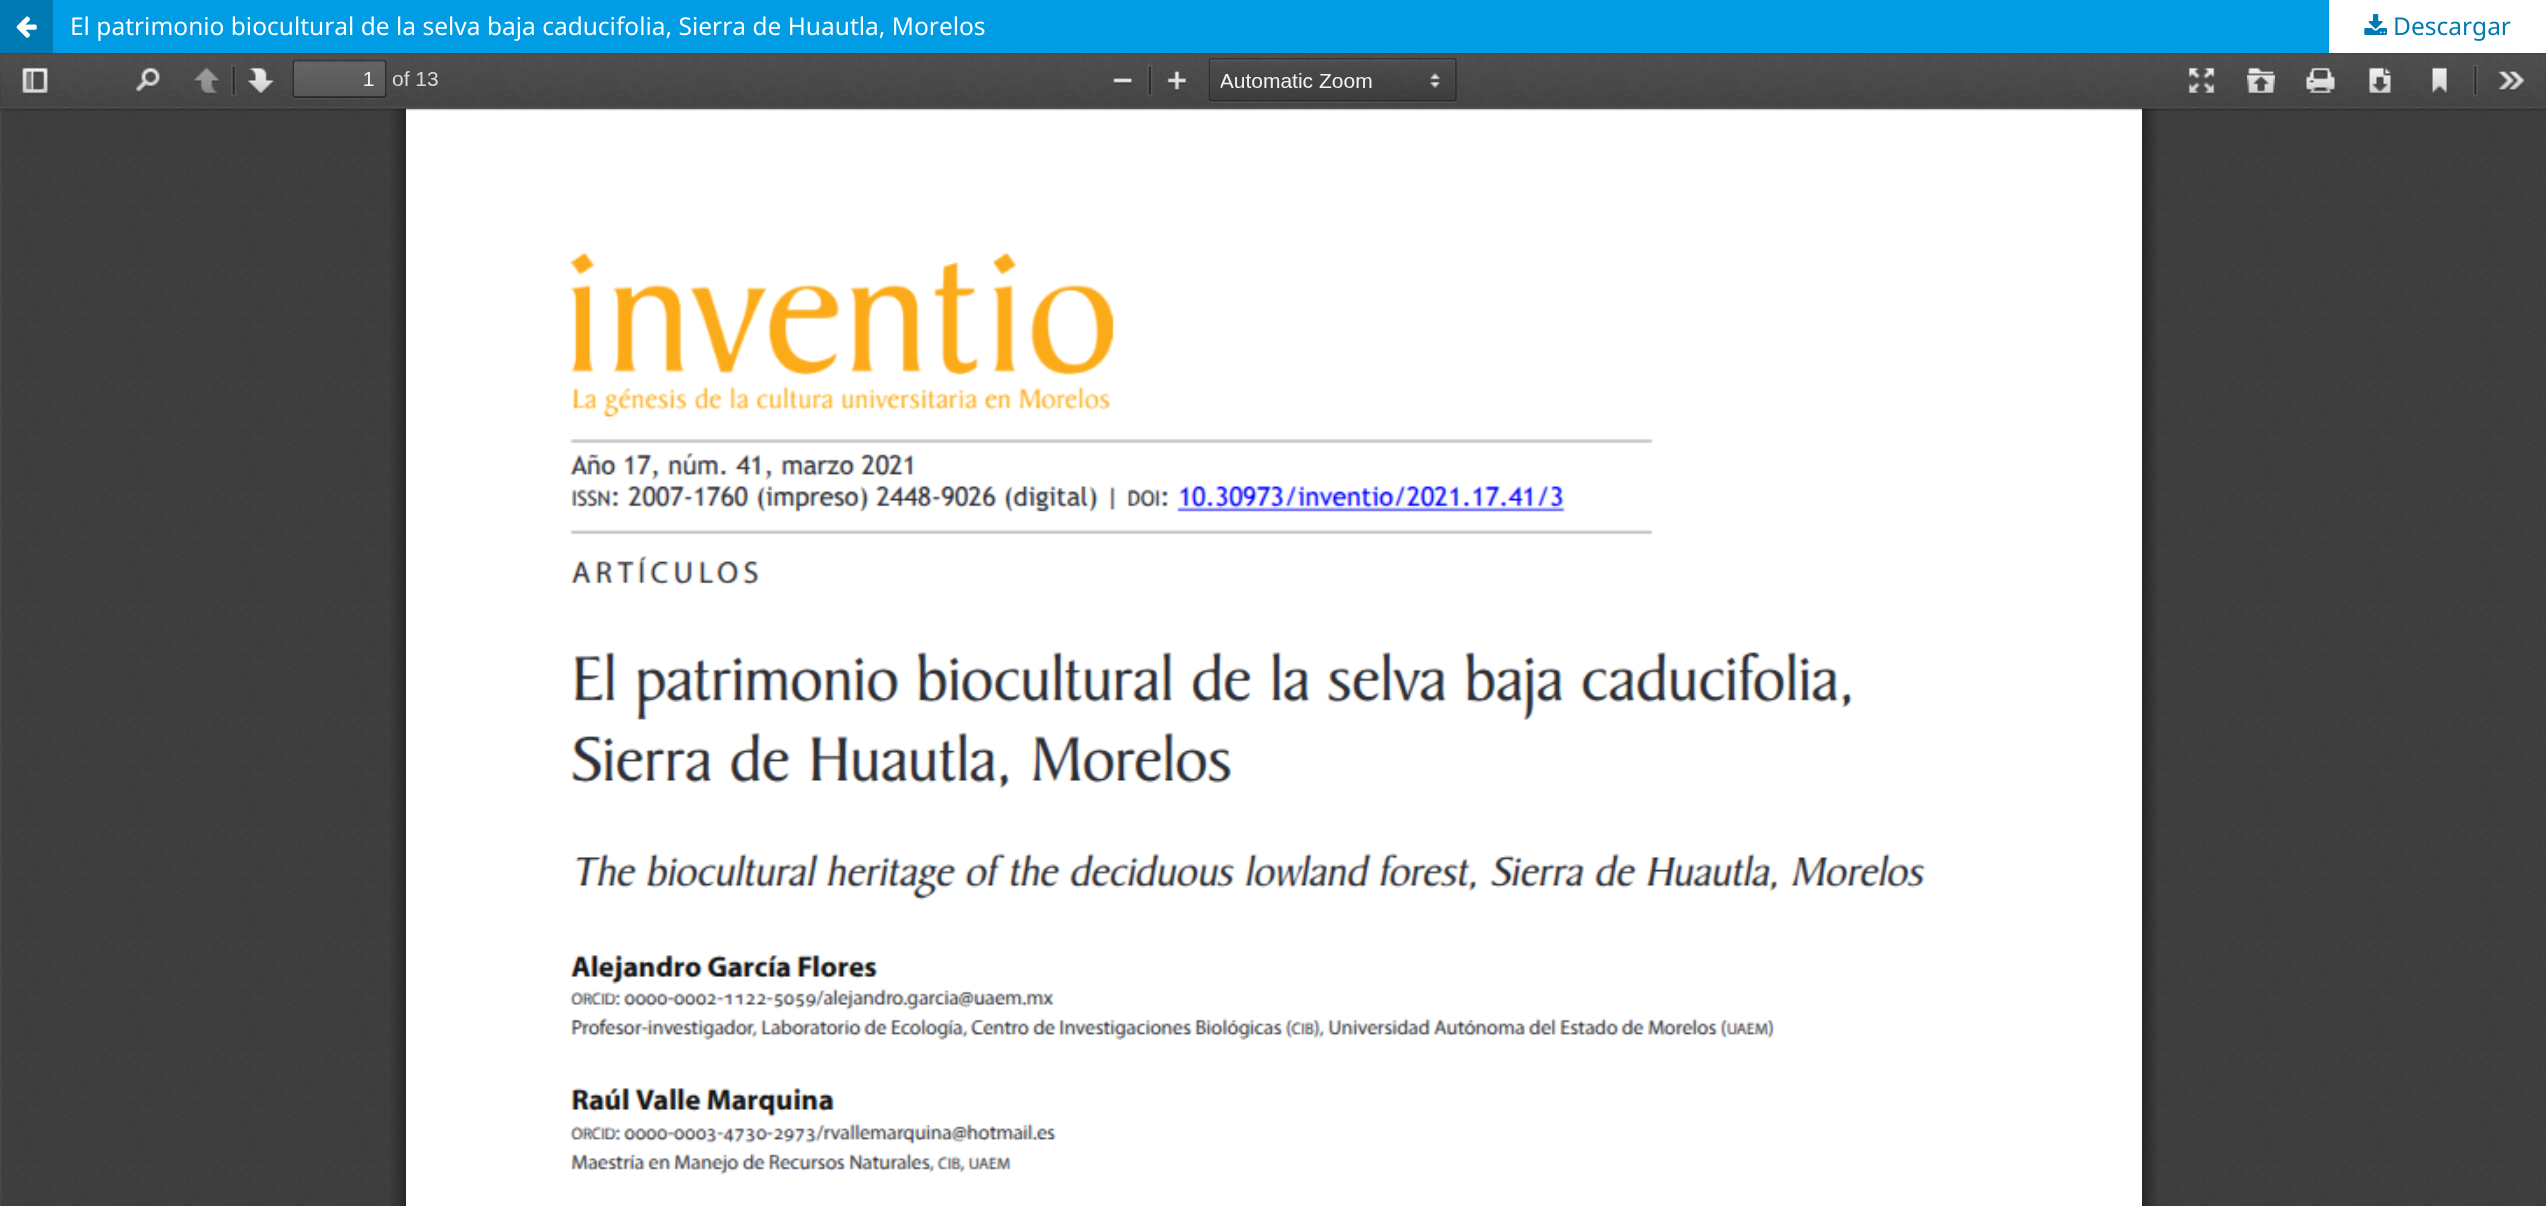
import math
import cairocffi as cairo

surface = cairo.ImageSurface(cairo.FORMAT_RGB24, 2546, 1206)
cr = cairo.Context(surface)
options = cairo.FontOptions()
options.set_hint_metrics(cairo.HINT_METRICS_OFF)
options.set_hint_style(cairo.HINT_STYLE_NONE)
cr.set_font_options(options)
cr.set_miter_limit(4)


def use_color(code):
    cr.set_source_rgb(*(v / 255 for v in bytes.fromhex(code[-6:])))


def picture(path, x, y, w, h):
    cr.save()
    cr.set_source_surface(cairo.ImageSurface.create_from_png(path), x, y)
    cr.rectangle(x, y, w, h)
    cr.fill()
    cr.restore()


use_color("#ffffff")
cr.paint()
use_color("#009de5")
cr.rectangle(53, 0, 2276, 53)
cr.fill()
use_color("#007ab2")
cr.rectangle(0, 0, 53, 53)
cr.fill()
picture("img1.png", 16, 16, 21, 22)
cr.select_font_face("Noto Sans")
cr.set_font_size(24.5)
use_color("#ffffff")
cr.move_to(70, 35)
cr.show_text("El patrimonio biocultural de la selva baja caducifolia, Sierra de Huautla, Morelos")
picture("img2.png", 2364, 14, 23, 21)
use_color("#007ab2")
cr.move_to(2393, 35)
cr.show_text("Descargar")
picture("img3.png", 0, 53, 2546, 1153)
surface.write_to_png("result.png")
